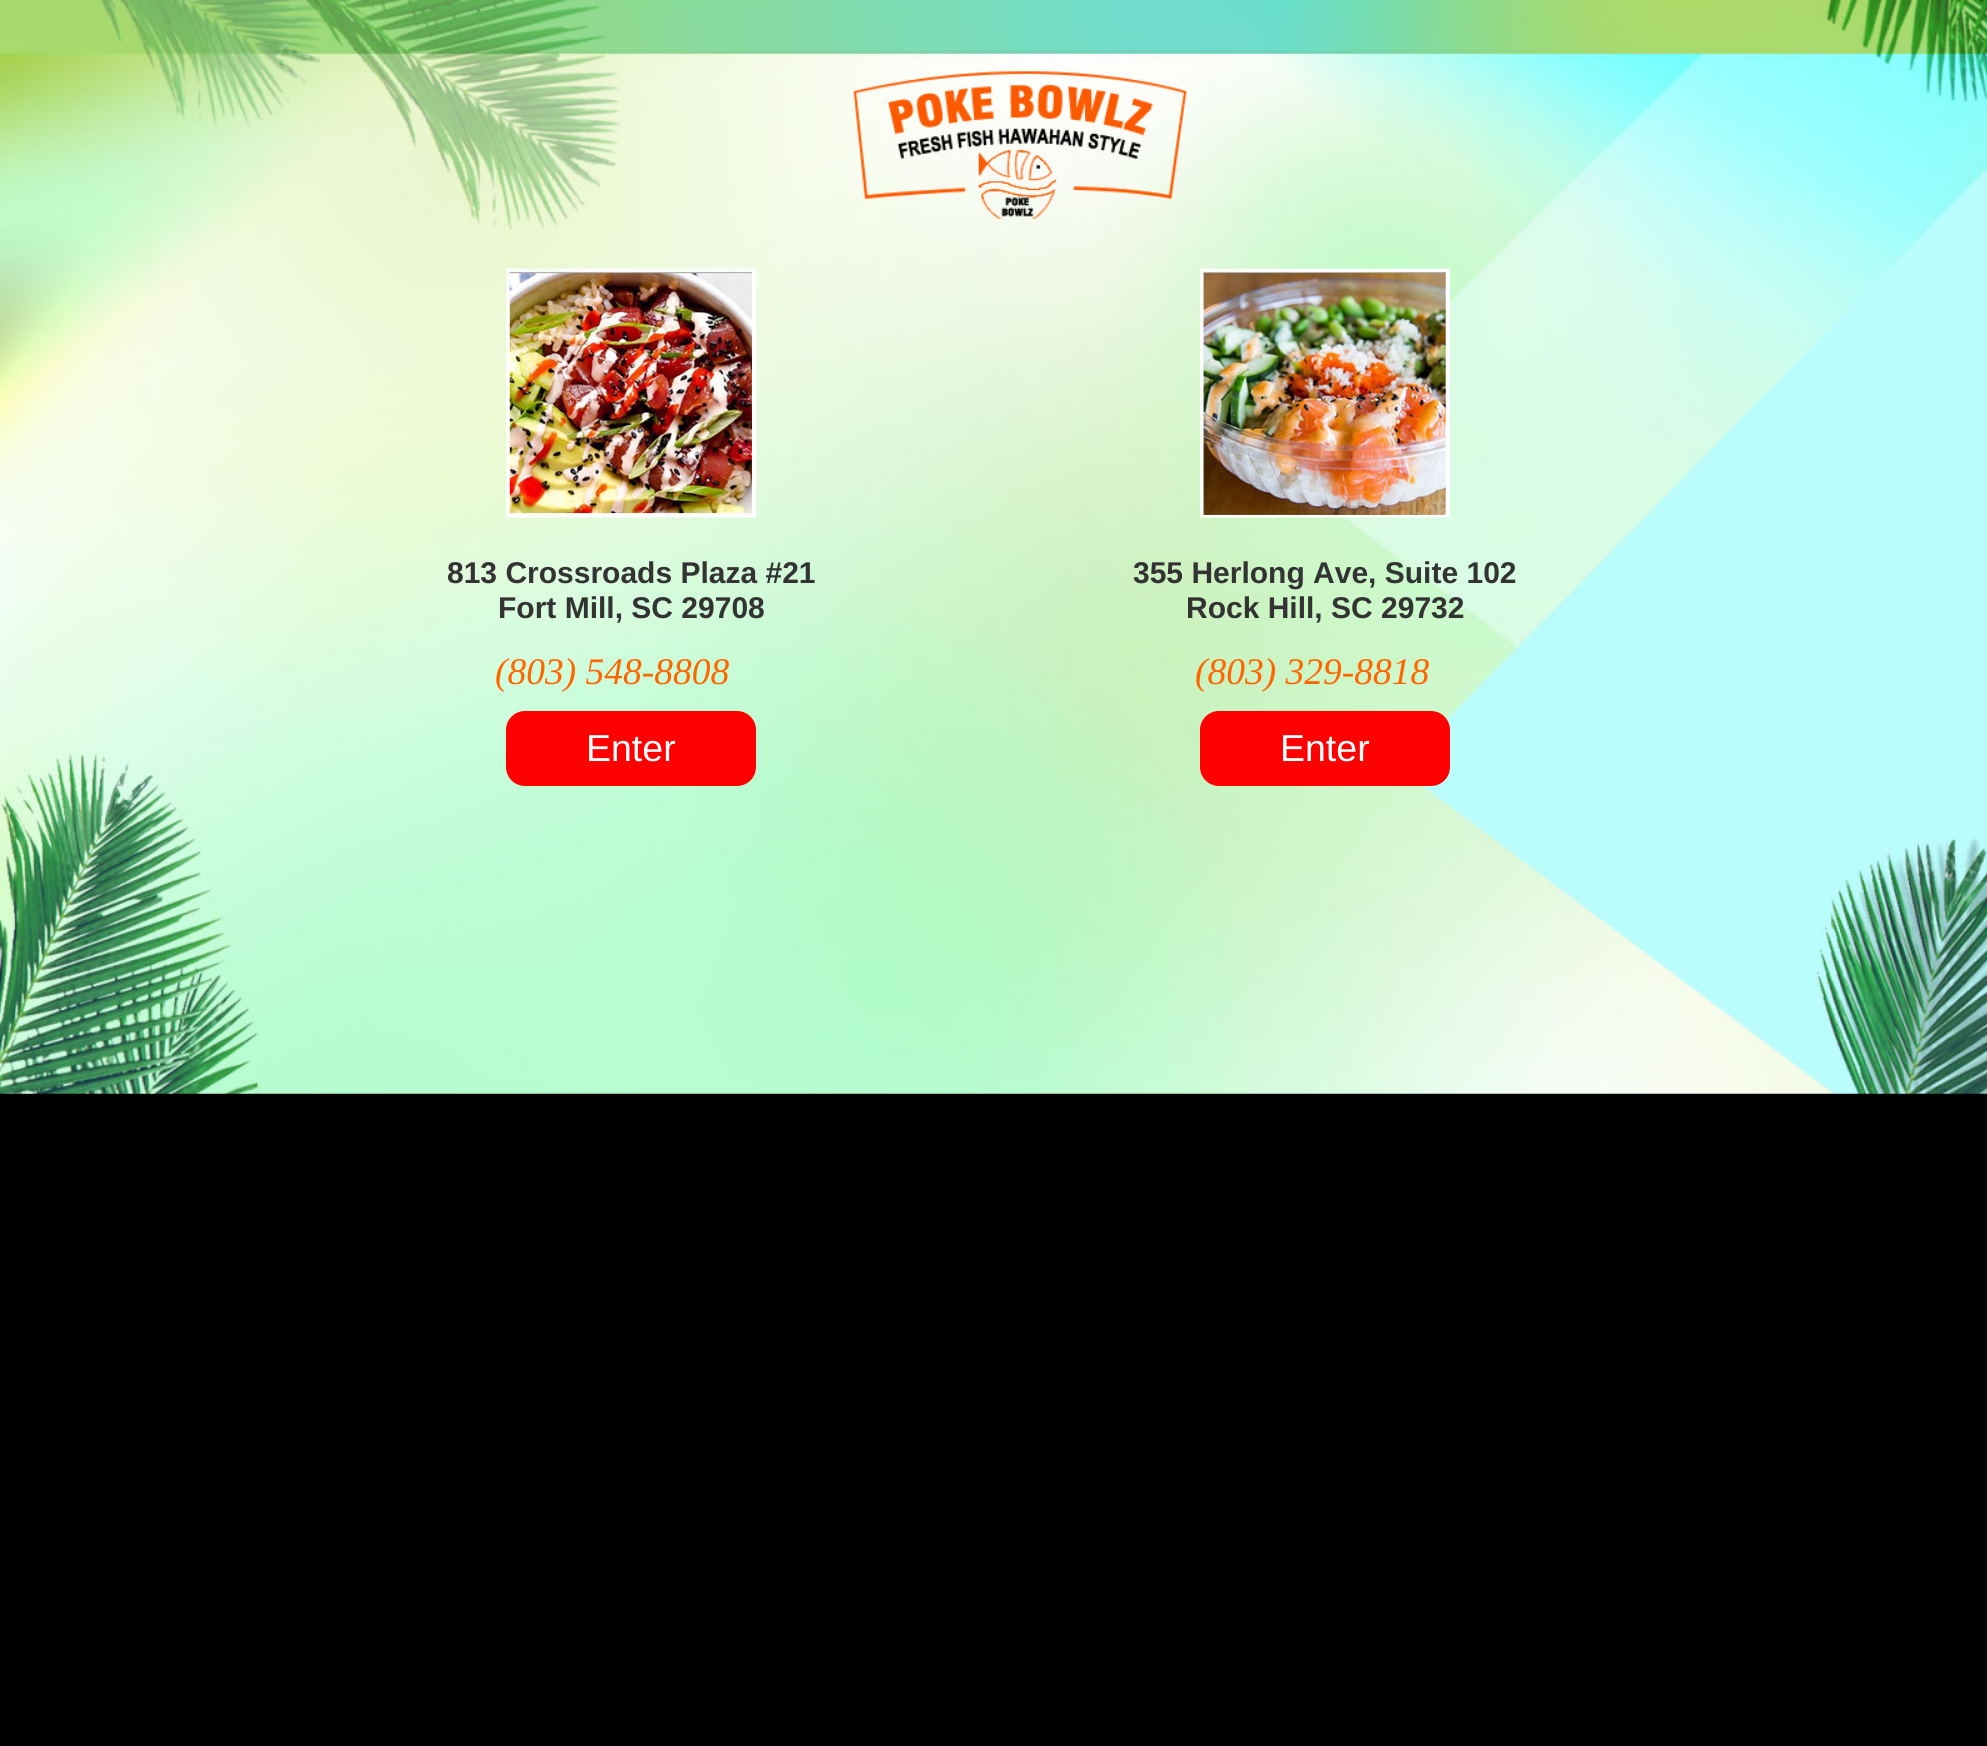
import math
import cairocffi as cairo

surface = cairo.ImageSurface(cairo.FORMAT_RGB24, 1987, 1746)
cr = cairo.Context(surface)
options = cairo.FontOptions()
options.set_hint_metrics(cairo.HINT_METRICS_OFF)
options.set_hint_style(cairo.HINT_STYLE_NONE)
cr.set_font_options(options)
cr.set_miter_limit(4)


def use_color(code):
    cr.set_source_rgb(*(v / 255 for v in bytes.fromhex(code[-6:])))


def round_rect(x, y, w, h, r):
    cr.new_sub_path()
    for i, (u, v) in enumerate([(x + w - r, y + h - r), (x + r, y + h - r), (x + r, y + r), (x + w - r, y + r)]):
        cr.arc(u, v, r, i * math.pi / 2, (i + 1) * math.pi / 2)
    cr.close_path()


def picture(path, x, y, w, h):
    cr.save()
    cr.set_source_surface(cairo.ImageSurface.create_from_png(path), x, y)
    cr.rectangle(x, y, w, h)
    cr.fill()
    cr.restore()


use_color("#000000")
cr.paint()
picture("img1.png", 0, 0, 1987, 1094)
picture("img2.png", 853, 71, 334, 148)
picture("img3.png", 506, 268, 251, 250)
cr.select_font_face("Liberation Sans", cairo.FONT_SLANT_NORMAL, cairo.FONT_WEIGHT_BOLD)
cr.set_font_size(30)
use_color("#333333")
cr.move_to(447, 583)
cr.show_text("813 Crossroads Plaza #21")
cr.move_to(498, 618)
cr.show_text("Fort Mill, SC 29708")
cr.select_font_face("Liberation Serif", cairo.FONT_SLANT_ITALIC)
cr.set_font_size(37.5)
use_color("#ff6600")
cr.move_to(495, 684)
cr.show_text("(803) 548-8808")
use_color("#ff0000")
round_rect(506, 711, 250, 75, 19)
cr.fill()
cr.select_font_face("Liberation Sans")
use_color("#ffffff")
cr.move_to(586, 761)
cr.show_text("Enter")
picture("img4.png", 1200, 268, 250, 250)
cr.select_font_face("Liberation Sans", cairo.FONT_SLANT_NORMAL, cairo.FONT_WEIGHT_BOLD)
cr.set_font_size(30)
use_color("#333333")
cr.move_to(1133, 583)
cr.show_text("355 Herlong Ave, Suite 102")
cr.move_to(1186, 618)
cr.show_text("Rock Hill, SC 29732")
cr.select_font_face("Liberation Serif", cairo.FONT_SLANT_ITALIC)
cr.set_font_size(37.5)
use_color("#ff6600")
cr.move_to(1195, 684)
cr.show_text("(803) 329-8818")
use_color("#ff0000")
round_rect(1200, 711, 250, 75, 19)
cr.fill()
cr.select_font_face("Liberation Sans")
use_color("#ffffff")
cr.move_to(1280, 761)
cr.show_text("Enter")
surface.write_to_png("result.png")
